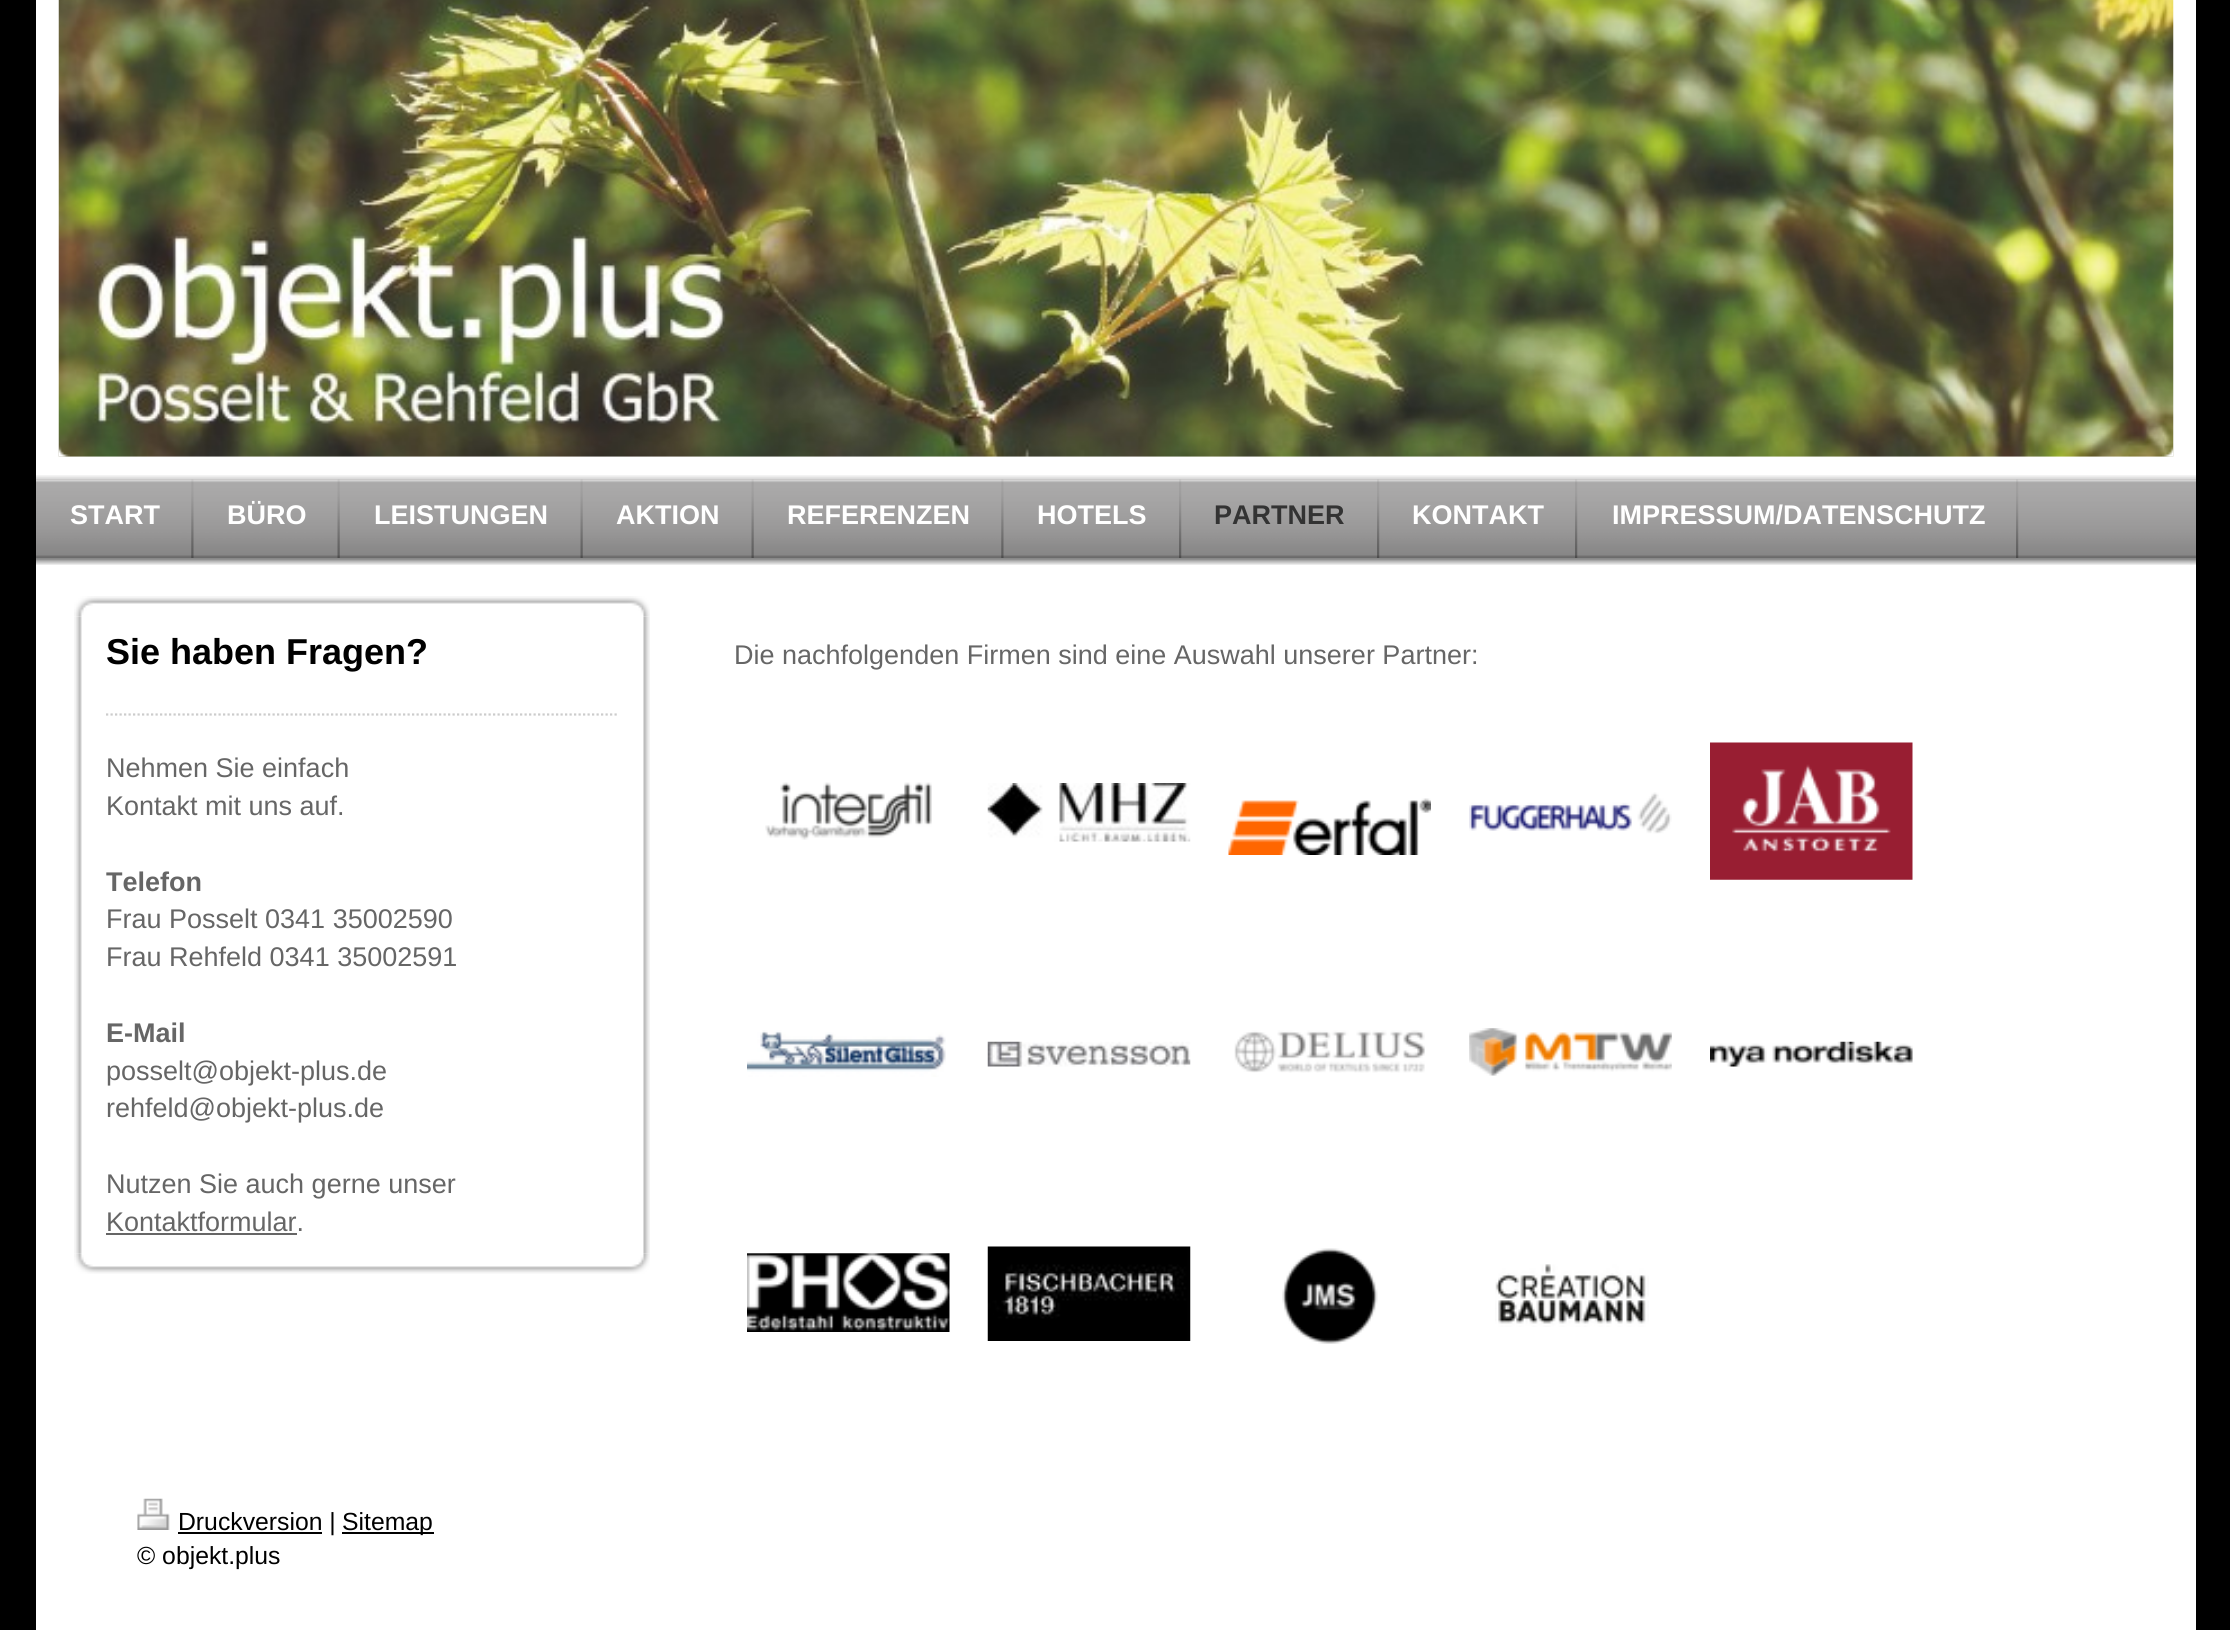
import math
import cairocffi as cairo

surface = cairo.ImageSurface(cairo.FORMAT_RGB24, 2230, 1630)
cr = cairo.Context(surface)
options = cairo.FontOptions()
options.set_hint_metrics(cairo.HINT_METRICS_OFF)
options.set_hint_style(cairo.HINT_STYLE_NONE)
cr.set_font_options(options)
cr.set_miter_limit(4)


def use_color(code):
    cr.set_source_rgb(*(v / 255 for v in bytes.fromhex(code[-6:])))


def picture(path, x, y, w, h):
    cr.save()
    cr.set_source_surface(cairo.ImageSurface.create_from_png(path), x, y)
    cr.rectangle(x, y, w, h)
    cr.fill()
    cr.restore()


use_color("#000000")
cr.paint()
use_color("#ffffff")
cr.rectangle(36, 0, 2160, 1630)
cr.fill()
picture("img1.png", 58, 0, 2116, 457)
picture("img2.png", 58, 445, 12, 12)
picture("img3.png", 2162, 445, 12, 12)
picture("img4.png", 36, 475, 2160, 4)
use_color("#abaaaa")
cr.rectangle(36, 479, 2160, 79)
cr.fill()
picture("img5.png", 36, 479, 2160, 79)
picture("img6.png", 191, 479, 3, 79)
cr.select_font_face("Liberation Sans", cairo.FONT_SLANT_NORMAL, cairo.FONT_WEIGHT_BOLD)
cr.set_font_size(27)
use_color("#ffffff")
cr.move_to(70, 524)
cr.show_text("START")
picture("img7.png", 337, 479, 3, 79)
cr.move_to(227, 524)
cr.show_text("BÜRO")
picture("img8.png", 580, 479, 3, 79)
cr.move_to(374, 524)
cr.show_text("LEISTUNGEN")
picture("img9.png", 751, 479, 3, 79)
cr.move_to(616, 524)
cr.show_text("AKTION")
picture("img10.png", 1001, 479, 3, 79)
cr.move_to(787, 524)
cr.show_text("REFERENZEN")
picture("img11.png", 1179, 479, 3, 79)
cr.move_to(1037, 524)
cr.show_text("HOTELS")
picture("img11.png", 1377, 479, 3, 79)
use_color("#333333")
cr.move_to(1214, 524)
cr.show_text("PARTNER")
picture("img12.png", 1575, 479, 3, 79)
use_color("#ffffff")
cr.move_to(1412, 524)
cr.show_text("KONTAKT")
picture("img11.png", 2016, 479, 3, 79)
cr.move_to(1612, 524)
cr.show_text("IMPRESSUM/DATENSCHUTZ")
picture("img13.png", 36, 558, 2160, 7)
picture("img14.png", 74, 596, 576, 21)
picture("img15.png", 74, 616, 576, 638)
cr.set_font_size(36)
use_color("#000000")
cr.move_to(106, 664)
cr.show_text("Sie haben Fragen?")
cr.new_path()
cr.move_to(106, 714.5)
cr.line_to(619, 714.5)
use_color("#cccccc")
cr.set_line_width(2.2)
cr.set_dash([2.25, 2.25])
cr.stroke()
cr.select_font_face("Liberation Sans")
cr.set_font_size(27)
use_color("#666666")
cr.move_to(106, 777)
cr.show_text("Nehmen Sie einfach")
cr.move_to(106, 815)
cr.show_text("Kontakt mit uns auf.")
cr.select_font_face("Liberation Sans", cairo.FONT_SLANT_NORMAL, cairo.FONT_WEIGHT_BOLD)
cr.move_to(106, 891)
cr.show_text("Telefon")
cr.select_font_face("Liberation Sans")
cr.move_to(106, 928)
cr.show_text("Frau Posselt 0341 35002590")
cr.move_to(106, 966)
cr.show_text("Frau Rehfeld 0341 35002591")
cr.select_font_face("Liberation Sans", cairo.FONT_SLANT_NORMAL, cairo.FONT_WEIGHT_BOLD)
cr.move_to(106, 1042)
cr.show_text("E-Mail")
cr.select_font_face("Liberation Sans")
cr.move_to(106, 1080)
cr.show_text("posselt@objekt-plus.de")
cr.move_to(106, 1117)
cr.show_text("rehfeld@objekt-plus.de")
cr.move_to(106, 1193)
cr.show_text("Nutzen Sie auch gerne unser")
cr.move_to(106, 1231)
cr.show_text("Kontaktformular.")
cr.rectangle(106, 1233, 191, 2)
cr.fill()
picture("img16.png", 74, 1253, 576, 21)
cr.move_to(734, 664)
cr.show_text("Die nachfolgenden Firmen sind eine Auswahl unserer Partner:")
picture("img17.png", 765, 782, 167, 58)
picture("img18.png", 987, 783, 204, 59)
picture("img19.png", 1228, 798, 203, 57)
picture("img20.png", 1469, 792, 203, 42)
picture("img21.png", 1710, 742, 203, 138)
picture("img22.png", 747, 1030, 199, 47)
picture("img23.png", 987, 1041, 204, 26)
picture("img24.png", 1234, 1030, 191, 43)
picture("img25.png", 1469, 1028, 203, 48)
picture("img26.png", 1710, 1041, 203, 26)
picture("img27.png", 747, 1253, 203, 79)
picture("img28.png", 987, 1246, 204, 95)
picture("img29.png", 1282, 1248, 96, 96)
picture("img30.png", 1495, 1264, 154, 63)
picture("img31.png", 137, 1498, 33, 32)
use_color("#000000")
cr.rectangle(178, 1532, 144, 2)
cr.fill()
cr.set_font_size(24.75)
cr.move_to(178, 1530)
cr.show_text("Druckversion |")
cr.rectangle(342, 1532, 92, 2)
cr.fill()
cr.move_to(342, 1530)
cr.show_text("Sitemap")
cr.move_to(137, 1564)
cr.show_text("© objekt.plus")
surface.write_to_png("result.png")
